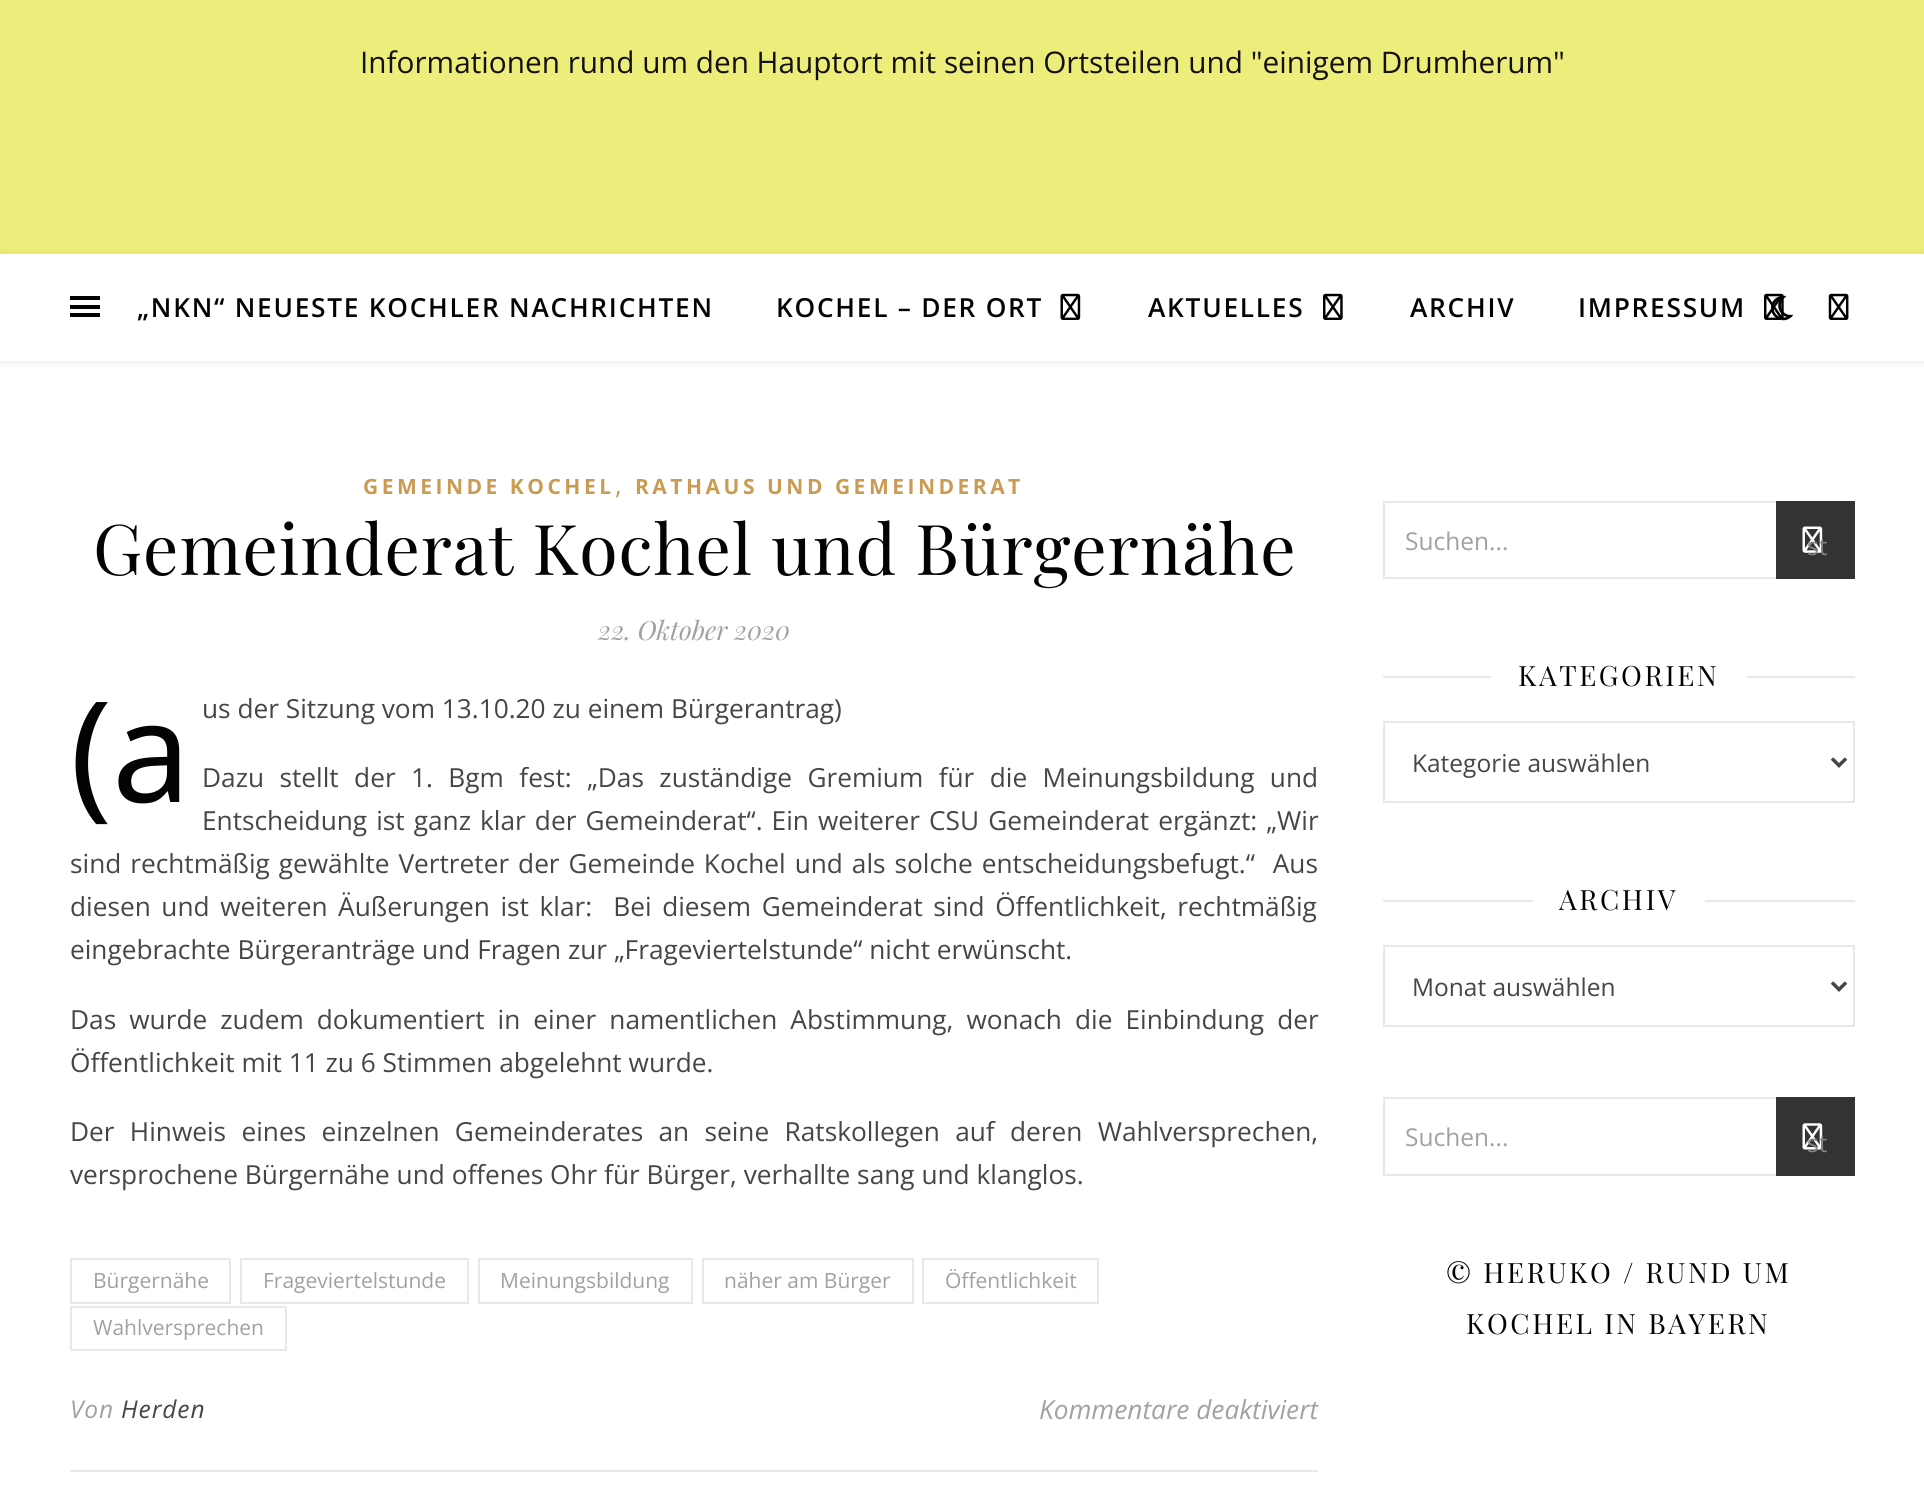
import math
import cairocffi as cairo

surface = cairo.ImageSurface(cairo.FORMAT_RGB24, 1924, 1494)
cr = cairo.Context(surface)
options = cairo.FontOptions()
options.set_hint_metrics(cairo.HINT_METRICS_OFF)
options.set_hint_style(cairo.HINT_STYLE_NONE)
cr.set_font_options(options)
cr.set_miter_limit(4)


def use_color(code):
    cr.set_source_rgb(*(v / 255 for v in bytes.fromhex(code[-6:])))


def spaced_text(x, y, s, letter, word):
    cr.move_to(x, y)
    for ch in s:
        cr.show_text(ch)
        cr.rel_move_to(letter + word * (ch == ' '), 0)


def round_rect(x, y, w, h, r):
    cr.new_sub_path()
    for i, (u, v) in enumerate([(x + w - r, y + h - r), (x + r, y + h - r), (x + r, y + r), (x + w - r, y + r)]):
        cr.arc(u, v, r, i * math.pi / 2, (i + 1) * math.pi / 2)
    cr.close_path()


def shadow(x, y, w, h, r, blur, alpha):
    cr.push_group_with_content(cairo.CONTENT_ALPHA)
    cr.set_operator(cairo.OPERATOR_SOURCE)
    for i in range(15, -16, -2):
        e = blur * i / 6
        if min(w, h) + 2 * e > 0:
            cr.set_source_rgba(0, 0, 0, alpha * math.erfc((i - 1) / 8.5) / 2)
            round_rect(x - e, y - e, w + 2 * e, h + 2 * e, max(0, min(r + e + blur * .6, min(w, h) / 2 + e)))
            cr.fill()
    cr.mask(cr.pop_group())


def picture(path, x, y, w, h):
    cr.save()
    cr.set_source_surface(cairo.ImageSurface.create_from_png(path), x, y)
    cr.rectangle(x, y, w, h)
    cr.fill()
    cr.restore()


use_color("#ffffff")
cr.paint()
use_color("#eded7b")
cr.rectangle(0, 0, 1924, 254)
cr.fill()
cr.select_font_face("Open Sans")
cr.set_font_size(29.75)
use_color("#111111")
cr.move_to(360, 73)
cr.show_text("Informationen rund um den Hauptort mit seinen Ortsteilen und \"einigem Drumherum\"")
use_color("#000000")
shadow(0, 256, 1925, 106, 0, 4.5, 0.1)
use_color("#ffffff")
cr.rectangle(0, 254, 1924, 107)
cr.fill()
use_color("#000000")
cr.rectangle(70, 296, 30, 4)
cr.fill()
cr.rectangle(70, 305, 30, 4)
cr.fill()
cr.rectangle(70, 313, 30, 4)
cr.fill()
cr.select_font_face("Open Sans SemiBold")
cr.set_font_size(26.25)
use_color("#030303")
spaced_text(137, 317, "„NKN“ NEUESTE KOCHLER NACHRICHTEN", 1.75, 0)
spaced_text(776, 317, "KOCHEL – DER ORT", 1.75, 0)
picture("img1.png", 1060, 293, 21, 27)
spaced_text(1148, 317, "AKTUELLES", 1.75, 0)
picture("img2.png", 1323, 293, 20, 27)
spaced_text(1410, 317, "ARCHIV", 1.75, 0)
spaced_text(1578, 317, "IMPRESSUM", 1.75, 0)
picture("img2.png", 1764, 293, 20, 27)
picture("img3.png", 1771, 295, 22, 26)
picture("img4.png", 1828, 293, 21, 27)
cr.select_font_face("Open Sans", cairo.FONT_SLANT_NORMAL, cairo.FONT_WEIGHT_BOLD)
cr.set_font_size(21)
use_color("#ca9b52")
spaced_text(363, 494, "GEMEINDE KOCHEL", 3.5, 0)
cr.select_font_face("Open Sans")
cr.set_font_size(26.25)
cr.move_to(615, 494)
cr.show_text(",")
cr.select_font_face("Open Sans", cairo.FONT_SLANT_NORMAL, cairo.FONT_WEIGHT_BOLD)
cr.set_font_size(21)
spaced_text(635, 494, "RATHAUS UND GEMEINDERAT", 3.5, 0)
cr.select_font_face("Playfair Display")
cr.set_font_size(70)
use_color("#030303")
spaced_text(93, 575, "Gemeinderat Kochel und Bürgernähe", 0.9, 0)
cr.select_font_face("Playfair Display", cairo.FONT_SLANT_ITALIC)
cr.set_font_size(26.25)
use_color("#a1a1a1")
cr.move_to(598, 640)
cr.show_text("22. Oktober 2020")
cr.select_font_face("Noto Sans")
cr.set_font_size(140)
use_color("#030303")
cr.move_to(70, 802)
cr.show_text("(a")
cr.select_font_face("Open Sans")
cr.set_font_size(26.25)
use_color("#464646")
cr.move_to(202, 718)
cr.show_text("us der Sitzung vom 13.10.20 zu einem Bürgerantrag)")
spaced_text(202, 787, "Dazu stellt der 1. Bgm fest: „Das zuständige Gremium für die Meinungsbildung und", 0, 8.6)
spaced_text(202, 830, "Entscheidung ist ganz klar der Gemeinderat“. Ein weiterer CSU Gemeinderat ergänzt: „Wir", 0, 2.25)
spaced_text(70, 873, "sind rechtmäßig gewählte Vertreter der Gemeinde Kochel und als solche entscheidungsbefugt.“  Aus", 0, 2.1)
spaced_text(70, 916, "diesen und weiteren Äußerungen ist klar:  Bei diesem Gemeinderat sind Öffentlichkeit, rechtmäßig", 0, 3.75)
cr.move_to(70, 959)
cr.show_text("eingebrachte Bürgeranträge und Fragen zur „Frageviertelstunde“ nicht erwünscht.")
spaced_text(70, 1029, "Das wurde zudem dokumentiert in einer namentlichen Abstimmung, wonach die Einbindung der", 0, 6.25)
cr.move_to(70, 1072)
cr.show_text("Öffentlichkeit mit 11 zu 6 Stimmen abgelehnt wurde.")
spaced_text(70, 1141, "Der Hinweis eines einzelnen Gemeinderates an seine Ratskollegen auf deren Wahlversprechen,", 0, 8.5)
cr.move_to(70, 1184)
cr.show_text("versprochene Bürgernähe und offenes Ohr für Bürger, verhallte sang und klanglos.")
use_color("#e8e8e8")
cr.rectangle(70, 1470, 1248, 2)
cr.fill()
cr.rectangle(71, 1259, 159, 44)
cr.stroke()
cr.set_font_size(21)
use_color("#a1a1a1")
cr.move_to(93, 1288)
cr.show_text("Bürgernähe")
cr.rectangle(241, 1259, 227, 44)
use_color("#e8e8e8")
cr.stroke()
use_color("#a1a1a1")
cr.move_to(263, 1288)
cr.show_text("Frageviertelstunde")
cr.rectangle(479, 1259, 213, 44)
use_color("#e8e8e8")
cr.stroke()
use_color("#a1a1a1")
cr.move_to(500, 1288)
cr.show_text("Meinungsbildung")
cr.rectangle(703, 1259, 210, 44)
use_color("#e8e8e8")
cr.stroke()
use_color("#a1a1a1")
cr.move_to(724, 1288)
cr.show_text("näher am Bürger")
cr.rectangle(923, 1259, 175, 44)
use_color("#e8e8e8")
cr.stroke()
use_color("#a1a1a1")
cr.move_to(945, 1288)
cr.show_text("Öffentlichkeit")
cr.rectangle(71, 1307, 215, 43)
use_color("#e8e8e8")
cr.stroke()
use_color("#a1a1a1")
cr.move_to(93, 1335)
cr.show_text("Wahlversprechen")
cr.select_font_face("Open Sans", cairo.FONT_SLANT_ITALIC)
cr.set_font_size(24.5)
spaced_text(70, 1418, "Von", 0.9, 0)
use_color("#464646")
spaced_text(121, 1418, "Herden", 0.9, 0)
cr.set_font_size(26.25)
use_color("#a1a1a1")
cr.move_to(1039, 1419)
cr.show_text("Kommentare deaktiviert")
cr.rectangle(1384, 502, 470, 76)
use_color("#e8e8e8")
cr.stroke()
cr.select_font_face("Open Sans")
cr.set_font_size(24.5)
use_color("#a1a1a1")
cr.move_to(1405, 550)
cr.show_text("Suchen...")
use_color("#333333")
cr.rectangle(1776, 501, 79, 78)
cr.fill()
picture("img5.png", 1802, 526, 21, 27)
use_color("#838383")
cr.move_to(1807, 555)
cr.show_text("st")
use_color("#e8e8e8")
cr.rectangle(1383, 676, 108, 2)
cr.fill()
cr.select_font_face("Playfair Display")
cr.set_font_size(28)
use_color("#030303")
spaced_text(1518, 686, "KATEGORIEN", 2.6, 0)
use_color("#e8e8e8")
cr.rectangle(1747, 676, 108, 2)
cr.fill()
cr.rectangle(1384, 722, 470, 80)
cr.stroke()
cr.new_path()
cr.move_to(1832, 758.5)
cr.line_to(1839, 765.5)
cr.line_to(1846, 758.5)
use_color("#464646")
cr.set_line_width(3.5)
cr.stroke()
cr.select_font_face("Open Sans")
cr.set_font_size(24.5)
cr.move_to(1412, 772)
cr.show_text("Kategorie auswählen")
use_color("#e8e8e8")
cr.rectangle(1383, 900, 150, 2)
cr.fill()
cr.select_font_face("Playfair Display")
cr.set_font_size(28)
use_color("#030303")
spaced_text(1559, 910, "ARCHIV", 2.6, 0)
use_color("#e8e8e8")
cr.rectangle(1705, 900, 150, 2)
cr.fill()
cr.rectangle(1384, 946, 470, 80)
cr.set_line_width(2)
cr.stroke()
cr.new_path()
cr.move_to(1832, 982.5)
cr.line_to(1839, 989.5)
cr.line_to(1846, 982.5)
use_color("#464646")
cr.set_line_width(3.5)
cr.stroke()
cr.select_font_face("Open Sans")
cr.set_font_size(24.5)
cr.move_to(1412, 996)
cr.show_text("Monat auswählen")
cr.rectangle(1384, 1098, 470, 77)
use_color("#e8e8e8")
cr.set_line_width(2)
cr.stroke()
use_color("#a1a1a1")
cr.move_to(1405, 1146)
cr.show_text("Suchen...")
use_color("#333333")
cr.rectangle(1776, 1097, 79, 79)
cr.fill()
picture("img6.png", 1802, 1123, 21, 27)
use_color("#838383")
cr.move_to(1807, 1152)
cr.show_text("st")
cr.select_font_face("Playfair Display")
cr.set_font_size(28)
use_color("#030303")
spaced_text(1446, 1283, "© HERUKO / RUND UM", 2.6, 0)
spaced_text(1466, 1334, "KOCHEL IN BAYERN", 2.6, 0)
surface.write_to_png("result.png")
